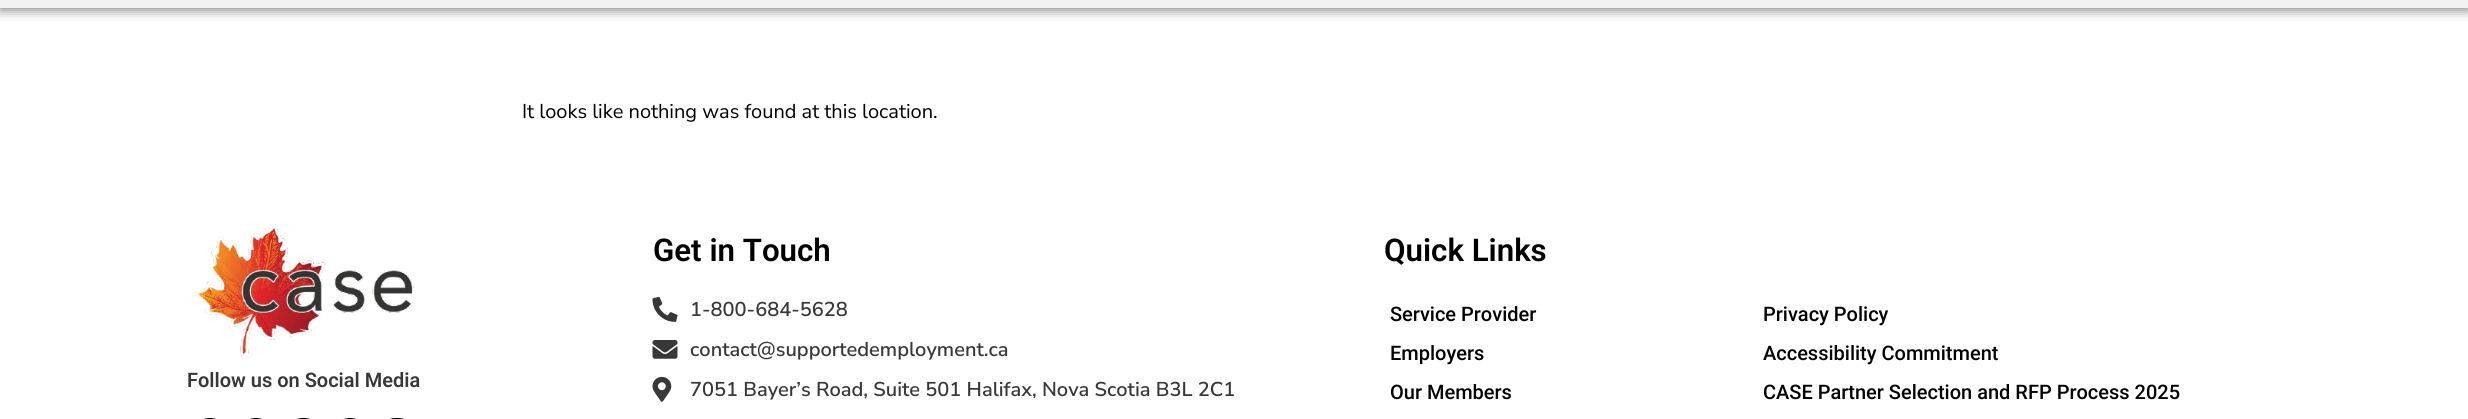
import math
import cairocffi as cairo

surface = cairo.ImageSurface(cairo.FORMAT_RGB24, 2468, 419)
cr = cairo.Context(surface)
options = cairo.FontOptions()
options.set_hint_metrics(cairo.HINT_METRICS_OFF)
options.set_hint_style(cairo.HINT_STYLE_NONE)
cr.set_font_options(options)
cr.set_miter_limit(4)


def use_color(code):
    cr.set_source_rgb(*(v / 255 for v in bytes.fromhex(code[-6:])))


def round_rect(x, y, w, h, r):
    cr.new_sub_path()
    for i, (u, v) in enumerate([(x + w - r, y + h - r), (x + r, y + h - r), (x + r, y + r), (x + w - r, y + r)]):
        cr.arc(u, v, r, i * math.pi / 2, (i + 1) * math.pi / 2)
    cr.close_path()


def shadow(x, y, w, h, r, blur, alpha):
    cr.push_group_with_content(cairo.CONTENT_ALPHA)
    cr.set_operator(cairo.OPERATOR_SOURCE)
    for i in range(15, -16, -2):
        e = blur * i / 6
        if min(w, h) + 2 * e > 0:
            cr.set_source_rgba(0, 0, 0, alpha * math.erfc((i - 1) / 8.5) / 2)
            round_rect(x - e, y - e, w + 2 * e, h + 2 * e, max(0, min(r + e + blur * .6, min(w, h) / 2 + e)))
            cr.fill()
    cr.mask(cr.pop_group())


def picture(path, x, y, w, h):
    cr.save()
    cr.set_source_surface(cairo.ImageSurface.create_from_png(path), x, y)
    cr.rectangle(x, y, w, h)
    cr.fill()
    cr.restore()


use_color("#ffffff")
cr.paint()
use_color("#000000")
shadow(0, -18, 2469, 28, 0, 6, 0.5)
use_color("#f2f2f2")
cr.rectangle(0, 0, 2468, 8)
cr.fill()
cr.select_font_face("Nunito Sans")
cr.set_font_size(20)
use_color("#000000")
cr.move_to(522, 118)
cr.show_text("It looks like nothing was found at this location.")
picture("img1.png", 194, 225, 220, 133)
cr.select_font_face("Roboto SemiBold")
use_color("#383839")
cr.move_to(187, 387)
cr.show_text("Follow us on Social Media")
use_color("#000000")
round_rect(190, 418, 40, 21, 20)
cr.fill()
round_rect(236, 418, 40, 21, 20)
cr.fill()
round_rect(283, 418, 41, 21, 20)
cr.fill()
round_rect(330, 418, 40, 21, 20)
cr.fill()
round_rect(376, 418, 42, 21, 20)
cr.fill()
cr.set_font_size(31.25)
cr.move_to(653, 261)
cr.show_text("Get in Touch")
picture("img2.png", 652, 296, 26, 26)
cr.select_font_face("Nunito Sans SemiBold")
cr.set_font_size(20)
use_color("#383839")
cr.move_to(690, 316)
cr.show_text("1-800-684-5628")
picture("img3.png", 652, 340, 26, 19)
cr.move_to(690, 356)
cr.show_text("contact@supportedemployment.ca")
picture("img4.png", 652, 376, 20, 26)
cr.move_to(690, 396)
cr.show_text("7051 Bayer’s Road, Suite 501 Halifax, Nova Scotia B3L 2C1")
cr.select_font_face("Roboto SemiBold")
cr.set_font_size(31.25)
use_color("#000000")
cr.move_to(1384, 261)
cr.show_text("Quick Links")
cr.select_font_face("Roboto Medium")
cr.set_font_size(20)
cr.move_to(1390, 321)
cr.show_text("Service Provider")
cr.move_to(1390, 360)
cr.show_text("Employers")
cr.move_to(1390, 399)
cr.show_text("Our Members")
cr.move_to(1763, 321)
cr.show_text("Privacy Policy")
cr.move_to(1763, 360)
cr.show_text("Accessibility Commitment")
cr.move_to(1763, 399)
cr.show_text("CASE Partner Selection and RFP Process 2025")
surface.write_to_png("result.png")
